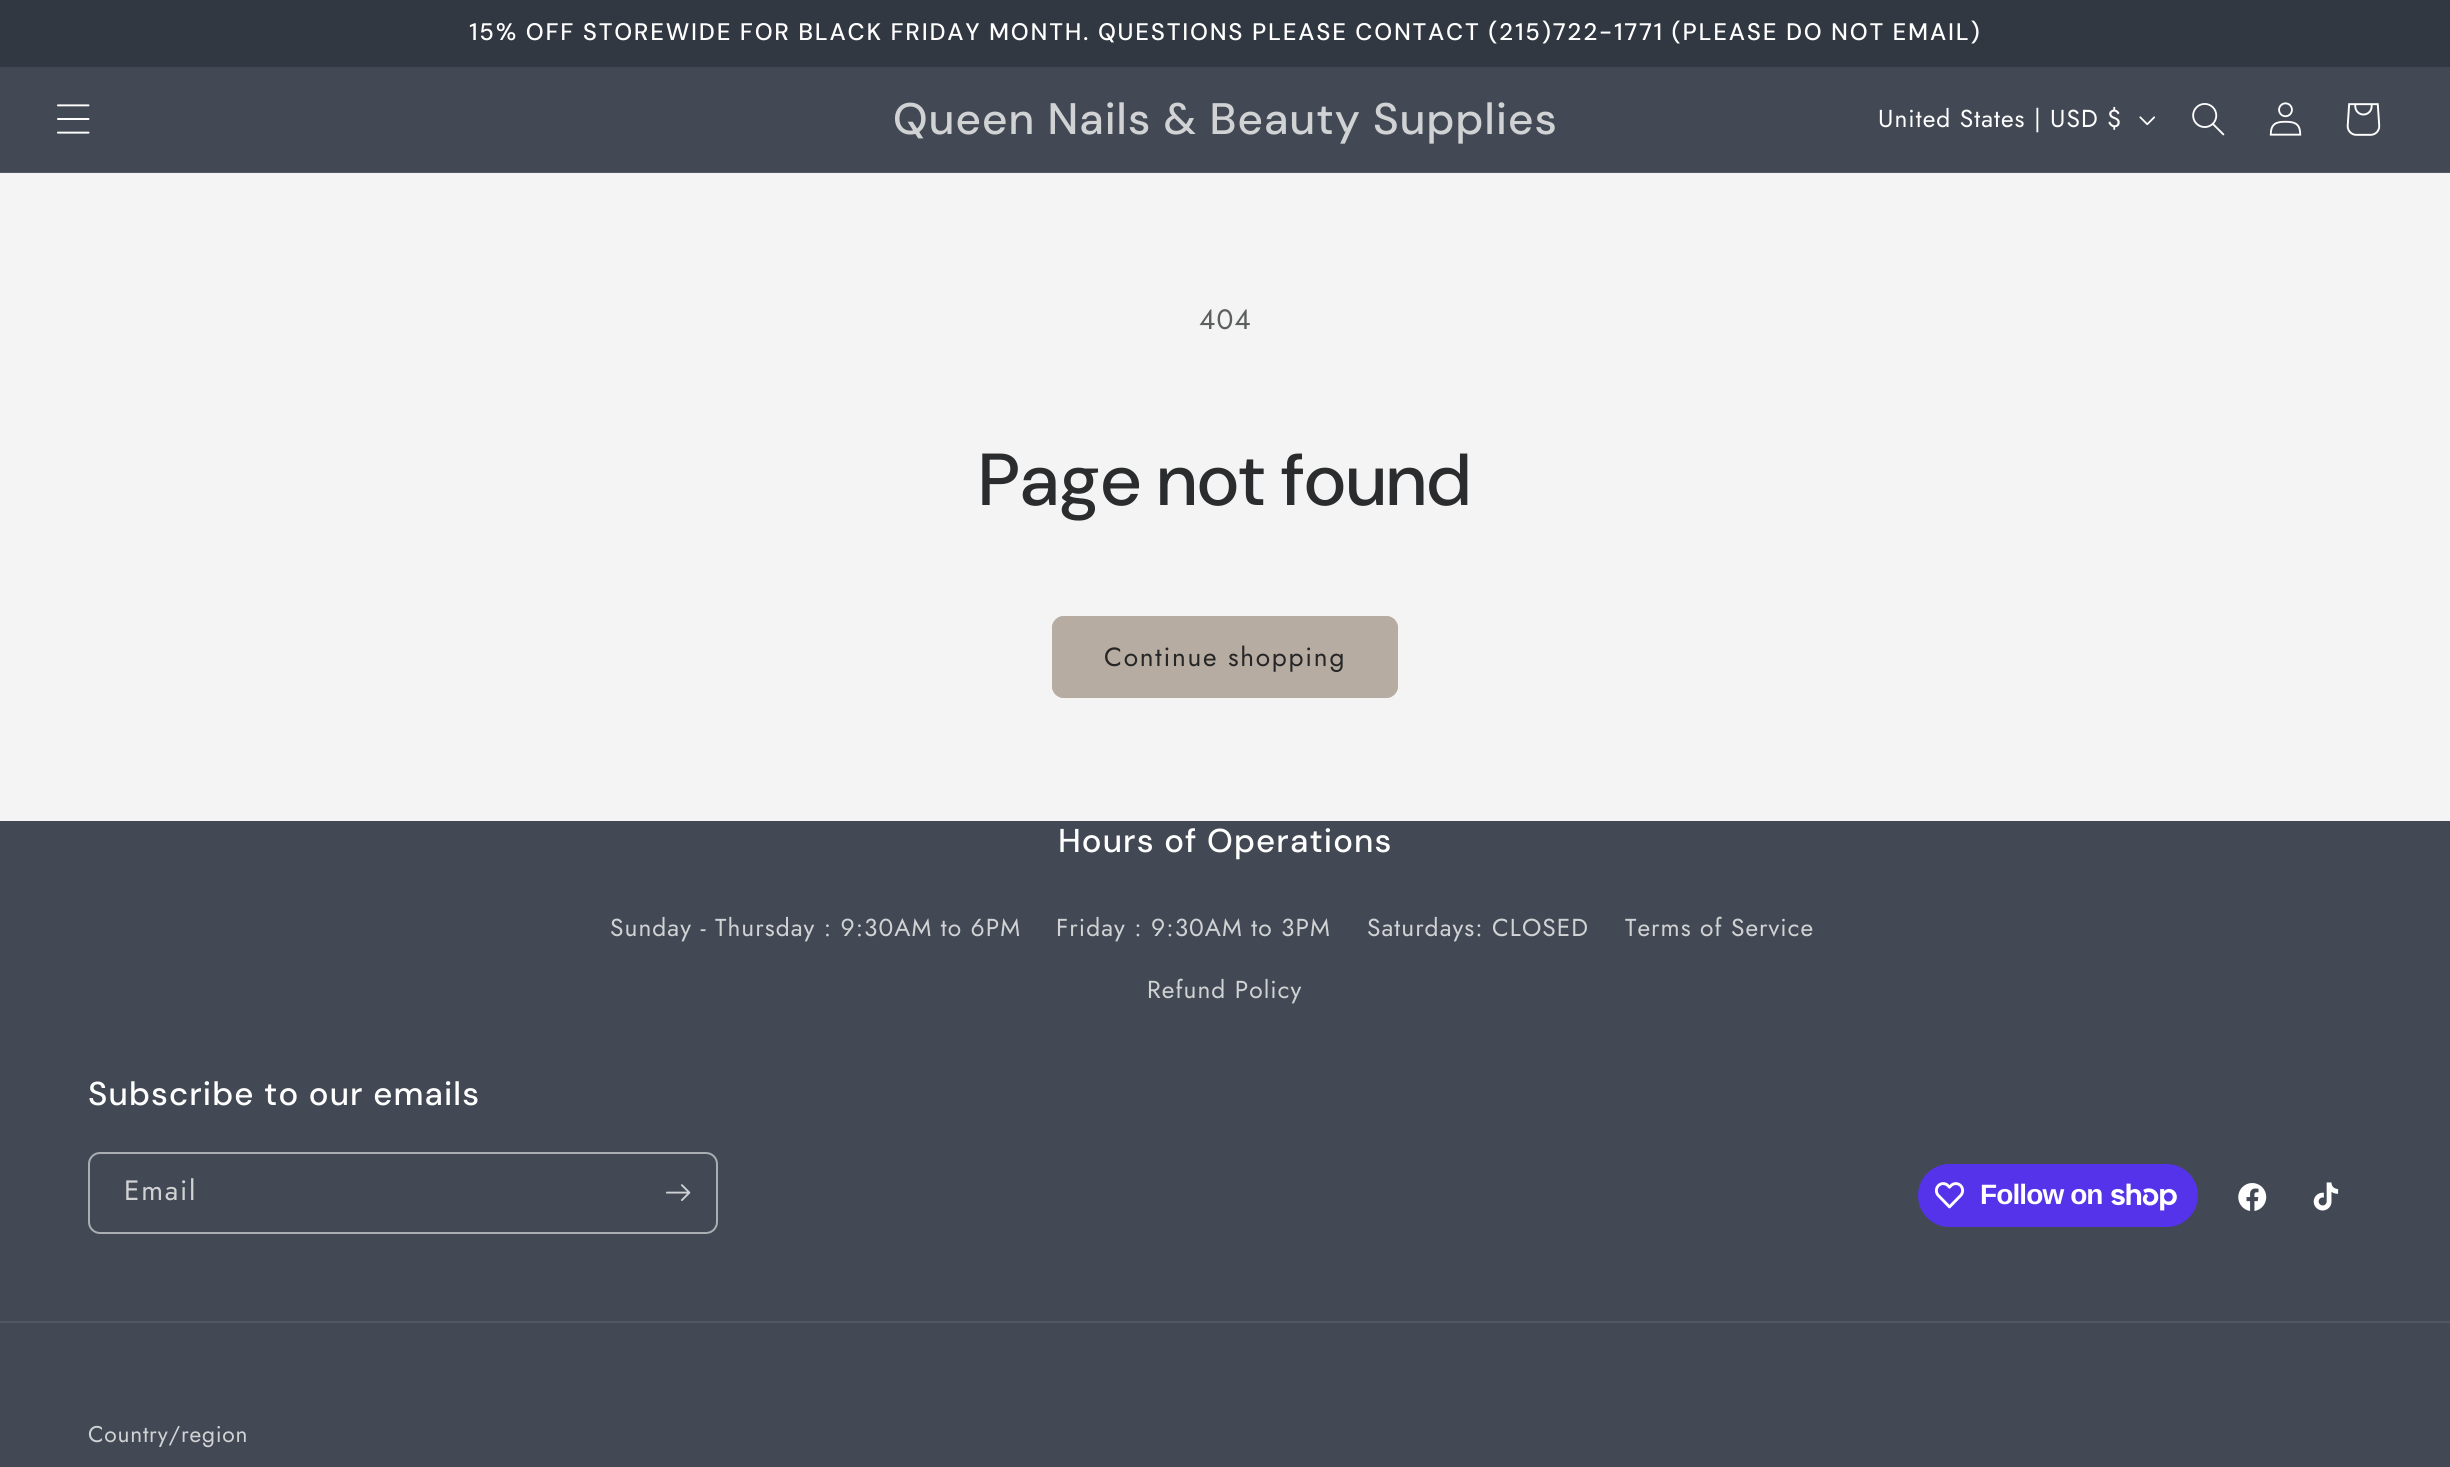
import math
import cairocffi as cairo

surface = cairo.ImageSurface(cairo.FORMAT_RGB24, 2450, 1467)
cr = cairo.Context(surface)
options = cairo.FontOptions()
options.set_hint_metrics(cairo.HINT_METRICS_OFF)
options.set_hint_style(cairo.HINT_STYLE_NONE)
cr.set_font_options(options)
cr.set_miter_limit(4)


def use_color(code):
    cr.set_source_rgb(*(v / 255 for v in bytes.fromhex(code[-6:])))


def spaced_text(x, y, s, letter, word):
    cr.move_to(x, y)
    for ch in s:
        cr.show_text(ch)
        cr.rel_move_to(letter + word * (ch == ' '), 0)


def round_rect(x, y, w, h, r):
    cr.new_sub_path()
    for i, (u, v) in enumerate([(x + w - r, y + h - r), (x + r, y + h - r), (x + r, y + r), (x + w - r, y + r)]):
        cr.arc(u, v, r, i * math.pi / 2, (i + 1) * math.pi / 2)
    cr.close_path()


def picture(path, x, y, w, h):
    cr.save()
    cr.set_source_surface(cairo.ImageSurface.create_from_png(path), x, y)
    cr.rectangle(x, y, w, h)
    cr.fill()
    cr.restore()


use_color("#f4f4f4")
cr.paint()
use_color("#323841")
cr.rectangle(0, 0, 2450, 67)
cr.fill()
cr.select_font_face("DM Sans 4 Medium")
cr.set_font_size(23.9)
use_color("#ffffff")
spaced_text(469, 40, "15% OFF STOREWIDE FOR BLACK FRIDAY MONTH. QUESTIONS PLEASE CONTACT (215)722-1771 (PLEASE DO NOT EMAIL)", 1.75, -0.3)
use_color("#434954")
cr.rectangle(0, 67, 2450, 105)
cr.fill()
use_color("#525862")
cr.rectangle(0, 172, 2450, 1)
cr.fill()
picture("img1.png", 57, 104, 33, 30)
cr.select_font_face("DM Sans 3 Medium")
cr.set_font_size(44.1)
use_color("#d0d2d4")
spaced_text(893, 134, "Queen Nails & Beauty Supplies", 1.1, 0)
cr.select_font_face("Jost")
cr.set_font_size(24.5)
use_color("#ffffff")
spaced_text(1878, 127, "United States | USD $", 1.05, 0)
picture("img2.png", 2139, 116, 17, 10)
picture("img3.png", 2192, 103, 33, 33)
picture("img4.png", 2269, 102, 33, 34)
picture("img5.png", 2346, 103, 35, 33)
cr.set_font_size(28)
use_color("#5d5e5f")
spaced_text(1199, 329, "404", 1.05, 0)
cr.select_font_face("DM Sans Medium")
cr.set_font_size(73.5)
use_color("#2b2c2d")
spaced_text(979, 505, "Page not found", 1.1, 0)
use_color("#b7aca2")
round_rect(1052, 616, 346, 82, 12)
cr.fill()
round_rect(1053, 617, 344, 80, 11)
cr.stroke()
cr.select_font_face("Jost")
cr.set_font_size(26.25)
use_color("#262626")
spaced_text(1104, 666, "Continue shopping", 1.75, 0)
use_color("#434954")
cr.rectangle(0, 821, 2450, 646)
cr.fill()
cr.select_font_face("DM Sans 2 Medium")
cr.set_font_size(33)
use_color("#ffffff")
spaced_text(1058, 852, "Hours of Operations", 1.1, 0)
cr.select_font_face("Jost")
cr.set_font_size(24.5)
use_color("#d0d2d4")
spaced_text(610, 936, "Sunday - Thursday : 9:30AM to 6PM", 1.05, 0)
spaced_text(1056, 936, "Friday : 9:30AM to 3PM", 1.05, 0)
spaced_text(1367, 936, "Saturdays: CLOSED", 1.05, 0)
spaced_text(1625, 936, "Terms of Service", 1.05, 0)
spaced_text(1147, 998, "Refund Policy", 1.05, 0)
cr.select_font_face("DM Sans 2 Medium")
cr.set_font_size(33)
use_color("#ffffff")
spaced_text(88, 1105, "Subscribe to our emails", 1.1, 0)
round_rect(89, 1153, 628, 80, 11)
use_color("#aaadb2")
cr.stroke()
cr.select_font_face("Jost")
cr.set_font_size(28)
use_color("#d0d2d4")
spaced_text(124, 1200, "Email", 1.75, 0)
picture("img6.png", 666, 1184, 25, 17)
use_color("#5433eb")
round_rect(1918, 1164, 280, 63, 31.5)
cr.fill()
picture("img7.png", 1934, 1182, 31, 27)
cr.select_font_face("Liberation Sans", cairo.FONT_SLANT_NORMAL, cairo.FONT_WEIGHT_BOLD)
use_color("#ffffff")
spaced_text(1980, 1204, "Follow on", -0.9, 0)
picture("img8.png", 2111, 1183, 66, 28)
picture("img9.png", 2238, 1183, 29, 28)
picture("img10.png", 2313, 1182, 26, 29)
use_color("#525862")
cr.rectangle(0, 1321, 2450, 2)
cr.fill()
cr.select_font_face("Jost")
cr.set_font_size(22.75)
use_color("#d0d2d4")
spaced_text(88, 1442, "Country/region", 0.75, 0)
surface.write_to_png("result.png")
